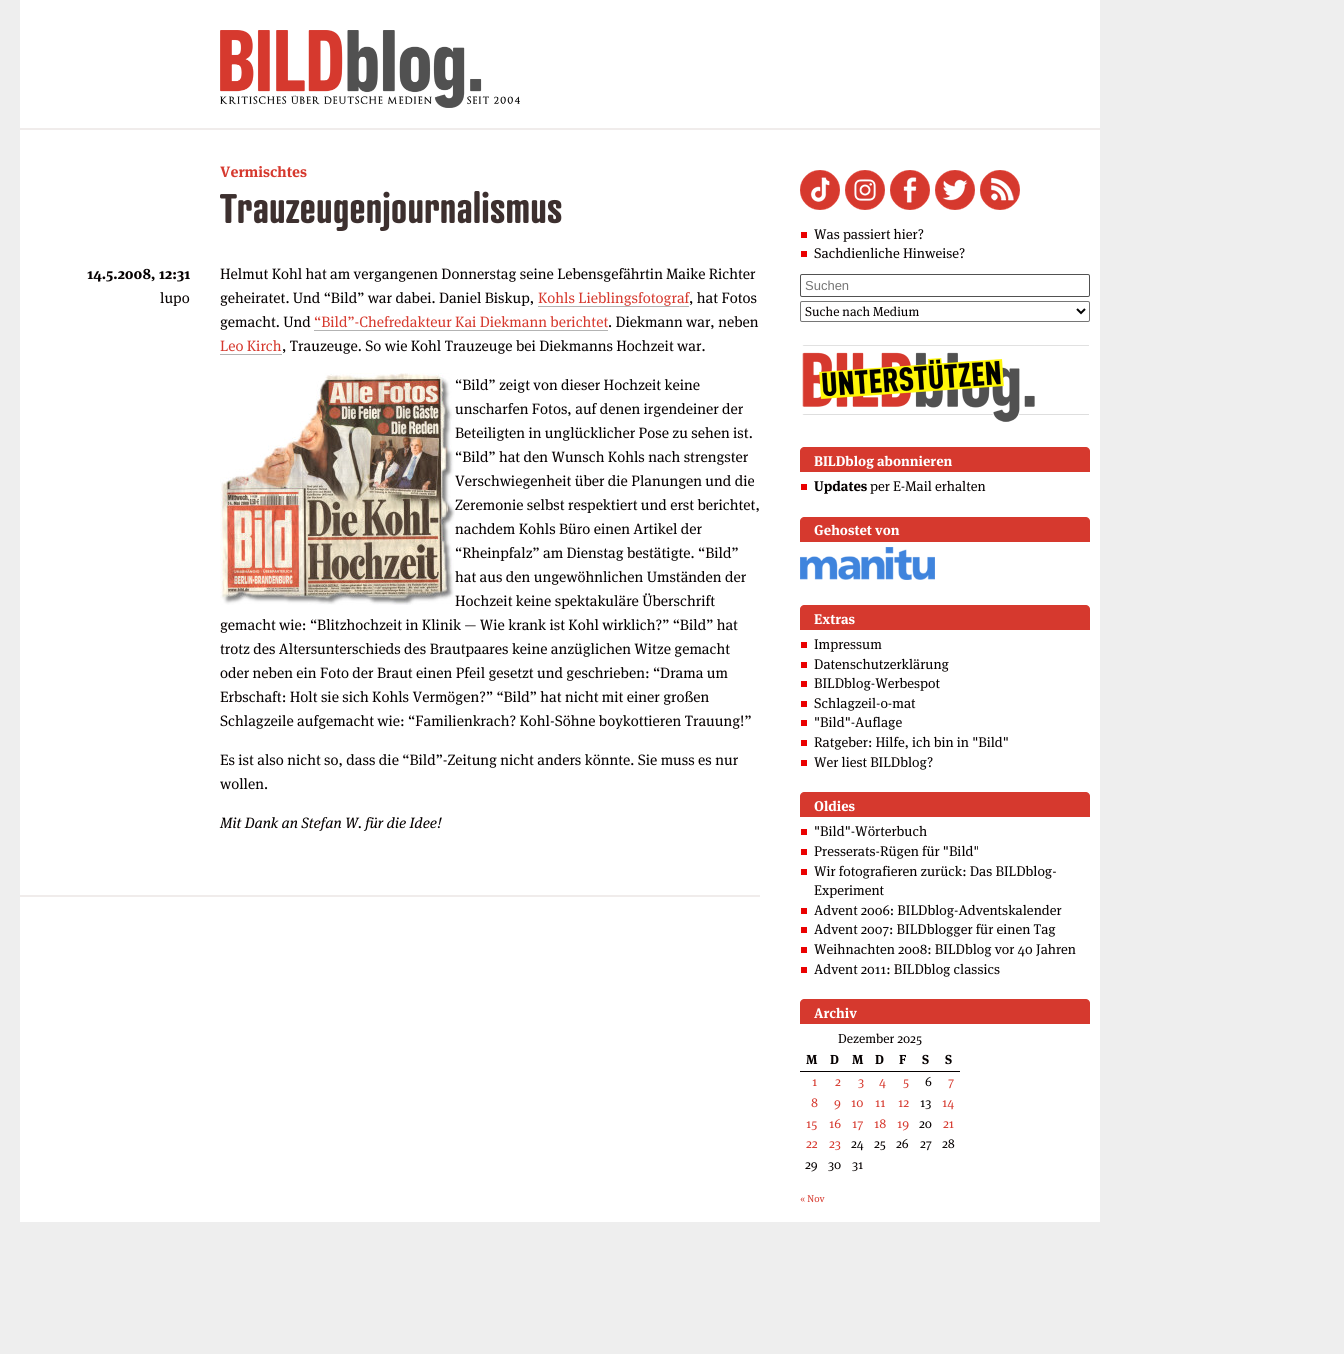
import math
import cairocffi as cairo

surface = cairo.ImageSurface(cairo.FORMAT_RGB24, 1344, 1354)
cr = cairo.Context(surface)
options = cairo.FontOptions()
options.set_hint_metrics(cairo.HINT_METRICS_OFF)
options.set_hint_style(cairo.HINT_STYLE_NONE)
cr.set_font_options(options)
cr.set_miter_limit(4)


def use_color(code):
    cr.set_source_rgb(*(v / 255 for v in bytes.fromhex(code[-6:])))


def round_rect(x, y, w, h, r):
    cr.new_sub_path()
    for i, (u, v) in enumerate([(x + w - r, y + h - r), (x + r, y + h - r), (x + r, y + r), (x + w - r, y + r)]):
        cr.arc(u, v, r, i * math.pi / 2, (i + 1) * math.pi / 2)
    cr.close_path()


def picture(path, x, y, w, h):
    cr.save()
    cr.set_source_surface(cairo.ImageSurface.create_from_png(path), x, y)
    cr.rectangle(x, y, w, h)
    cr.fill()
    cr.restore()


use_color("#eeeeee")
cr.paint()
use_color("#ffffff")
cr.rectangle(20, 0, 1080, 1222)
cr.fill()
picture("img1.png", 220, 30, 300, 78)
use_color("#f0eceb")
cr.rectangle(20, 128, 1080, 2)
cr.fill()
cr.select_font_face("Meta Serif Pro", cairo.FONT_SLANT_NORMAL, cairo.FONT_WEIGHT_BOLD)
cr.set_font_size(15)
use_color("#d6392e")
cr.move_to(220, 177)
cr.show_text("Vermischtes")
cr.select_font_face("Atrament", cairo.FONT_SLANT_NORMAL, cairo.FONT_WEIGHT_BOLD)
cr.set_font_size(40)
use_color("#3d302f")
cr.move_to(220, 223)
cr.show_text("Trauzeugenjournalismus")
use_color("#f0eceb")
cr.rectangle(20, 895, 740, 2)
cr.fill()
cr.select_font_face("Meta Serif Pro", cairo.FONT_SLANT_NORMAL, cairo.FONT_WEIGHT_BOLD)
cr.set_font_size(15)
use_color("#050000")
cr.move_to(87, 279)
cr.show_text("14.5.2008, 12:31")
cr.select_font_face("Meta Serif Pro")
cr.move_to(160, 303)
cr.show_text("lupo")
cr.move_to(220, 279)
cr.show_text("Helmut Kohl hat am vergangenen Donnerstag seine Lebensgefährtin Maike Richter")
cr.move_to(220, 303)
cr.show_text("geheiratet. Und “Bild” war dabei. Daniel Biskup,")
use_color("#d6392e")
cr.move_to(538, 303)
cr.show_text("Kohls Lieblingsfotograf")
use_color("#b3b3b3")
cr.rectangle(538, 306, 151, 1)
cr.fill()
use_color("#050000")
cr.move_to(689, 303)
cr.show_text(", hat Fotos")
cr.move_to(220, 327)
cr.show_text("gemacht. Und")
use_color("#d6392e")
cr.move_to(314, 327)
cr.show_text("“Bild”-Chefredakteur Kai Diekmann berichtet")
use_color("#b3b3b3")
cr.rectangle(314, 330, 294, 1)
cr.fill()
use_color("#050000")
cr.move_to(608, 327)
cr.show_text(". Diekmann war, neben")
use_color("#d6392e")
cr.move_to(220, 351)
cr.show_text("Leo Kirch")
use_color("#b3b3b3")
cr.rectangle(220, 354, 62, 1)
cr.fill()
use_color("#050000")
cr.move_to(282, 351)
cr.show_text(", Trauzeuge. So wie Kohl Trauzeuge bei Diekmanns Hochzeit war.")
picture("img2.png", 220, 373, 235, 232)
cr.move_to(455, 390)
cr.show_text("“Bild” zeigt von dieser Hochzeit keine")
cr.move_to(455, 414)
cr.show_text("unscharfen Fotos, auf denen irgendeiner der")
cr.move_to(455, 438)
cr.show_text("Beteiligten in unglücklicher Pose zu sehen ist.")
cr.move_to(455, 462)
cr.show_text("“Bild” hat den Wunsch Kohls nach strengster")
cr.move_to(455, 486)
cr.show_text("Verschwiegenheit über die Planungen und die")
cr.move_to(455, 510)
cr.show_text("Zeremonie selbst respektiert und erst berichtet,")
cr.move_to(455, 534)
cr.show_text("nachdem Kohls Büro einen Artikel der")
cr.move_to(455, 558)
cr.show_text("“Rheinpfalz” am Dienstag bestätigte. “Bild”")
cr.move_to(455, 582)
cr.show_text("hat aus den ungewöhnlichen Umständen der")
cr.move_to(455, 606)
cr.show_text("Hochzeit keine spektakuläre Überschrift")
cr.move_to(220, 630)
cr.show_text("gemacht wie: “Blitzhochzeit in Klinik — Wie krank ist Kohl wirklich?” “Bild” hat")
cr.move_to(220, 654)
cr.show_text("trotz des Altersunterschieds des Brautpaares keine anzüglichen Witze gemacht")
cr.move_to(220, 678)
cr.show_text("oder neben ein Foto der Braut einen Pfeil gesetzt und geschrieben: “Drama um")
cr.move_to(220, 702)
cr.show_text("Erbschaft: Holt sie sich Kohls Vermögen?” “Bild” hat nicht mit einer großen")
cr.move_to(220, 726)
cr.show_text("Schlagzeile aufgemacht wie: “Familienkrach? Kohl-Söhne boykottieren Trauung!”")
cr.move_to(220, 765)
cr.show_text("Es ist also nicht so, dass die “Bild”-Zeitung nicht anders könnte. Sie muss es nur")
cr.move_to(220, 789)
cr.show_text("wollen.")
cr.select_font_face("Meta Serif Pro", cairo.FONT_SLANT_ITALIC)
cr.move_to(220, 828)
cr.show_text("Mit Dank an Stefan W. für die Idee!")
picture("img3.png", 800, 170, 40, 40)
picture("img4.png", 845, 170, 40, 40)
picture("img5.png", 890, 170, 40, 40)
picture("img6.png", 935, 170, 40, 40)
picture("img7.png", 980, 170, 40, 40)
use_color("#ea0101")
cr.rectangle(801, 232, 6, 6)
cr.fill()
cr.select_font_face("Meta Serif Pro")
cr.set_font_size(14)
use_color("#050000")
cr.move_to(814, 239)
cr.show_text("Was passiert hier?")
use_color("#ea0101")
cr.rectangle(801, 251, 6, 6)
cr.fill()
use_color("#050000")
cr.move_to(814, 258)
cr.show_text("Sachdienliche Hinweise?")
round_rect(800.5, 274.5, 289, 22, 1.5)
use_color("#515151")
cr.set_line_width(1)
cr.stroke()
cr.select_font_face("Liberation Sans")
cr.set_font_size(13)
use_color("#757575")
cr.move_to(805, 290)
cr.show_text("Suchen")
round_rect(800.5, 301.5, 289, 20, 1.5)
use_color("#767676")
cr.stroke()
cr.new_path()
cr.move_to(1077, 309)
cr.line_to(1081, 313)
cr.line_to(1085, 309)
use_color("#000000")
cr.set_line_width(2)
cr.stroke()
cr.select_font_face("Meta Serif Pro")
use_color("#050000")
cr.move_to(805, 316)
cr.show_text("Suche nach Medium")
picture("img8.png", 802, 345, 287, 77)
use_color("#d6392e")
cr.new_path()
cr.move_to(804, 447)
cr.line_to(1086, 447)
cr.curve_to(1088, 447, 1090, 449, 1090, 451)
cr.line_to(1090, 472)
cr.line_to(800, 472)
cr.line_to(800, 451)
cr.curve_to(800, 449, 802, 447, 804, 447)
cr.close_path()
cr.fill()
cr.select_font_face("Meta Serif Pro", cairo.FONT_SLANT_NORMAL, cairo.FONT_WEIGHT_BOLD)
cr.set_font_size(14)
use_color("#ffffff")
cr.move_to(814, 466)
cr.show_text("BILDblog abonnieren")
use_color("#ea0101")
cr.rectangle(801, 484, 6, 6)
cr.fill()
use_color("#050000")
cr.move_to(814, 491)
cr.show_text("Updates")
cr.select_font_face("Meta Serif Pro")
cr.move_to(870, 491)
cr.show_text("per E-Mail erhalten")
use_color("#d6392e")
cr.new_path()
cr.move_to(804, 517)
cr.line_to(1086, 517)
cr.curve_to(1088, 517, 1090, 519, 1090, 521)
cr.line_to(1090, 542)
cr.line_to(800, 542)
cr.line_to(800, 521)
cr.curve_to(800, 519, 802, 517, 804, 517)
cr.close_path()
cr.fill()
cr.select_font_face("Meta Serif Pro", cairo.FONT_SLANT_NORMAL, cairo.FONT_WEIGHT_BOLD)
use_color("#ffffff")
cr.move_to(814, 535)
cr.show_text("Gehostet von")
picture("img9.png", 800, 547, 135, 33)
use_color("#d6392e")
cr.new_path()
cr.move_to(804, 605)
cr.line_to(1086, 605)
cr.curve_to(1088, 605, 1090, 607, 1090, 609)
cr.line_to(1090, 630)
cr.line_to(800, 630)
cr.line_to(800, 609)
cr.curve_to(800, 607, 802, 605, 804, 605)
cr.close_path()
cr.fill()
use_color("#ffffff")
cr.move_to(814, 624)
cr.show_text("Extras")
use_color("#ea0101")
cr.rectangle(801, 642, 6, 6)
cr.fill()
cr.select_font_face("Meta Serif Pro")
use_color("#050000")
cr.move_to(814, 649)
cr.show_text("Impressum")
use_color("#ea0101")
cr.rectangle(801, 662, 6, 6)
cr.fill()
use_color("#050000")
cr.move_to(814, 669)
cr.show_text("Datenschutzerklärung")
use_color("#ea0101")
cr.rectangle(801, 681, 6, 6)
cr.fill()
use_color("#050000")
cr.move_to(814, 688)
cr.show_text("BILDblog-Werbespot")
use_color("#ea0101")
cr.rectangle(801, 701, 6, 6)
cr.fill()
use_color("#050000")
cr.move_to(814, 708)
cr.show_text("Schlagzeil-o-mat")
use_color("#ea0101")
cr.rectangle(801, 720, 6, 6)
cr.fill()
use_color("#050000")
cr.move_to(814, 727)
cr.show_text("\"Bild\"-Auflage")
use_color("#ea0101")
cr.rectangle(801, 740, 6, 6)
cr.fill()
use_color("#050000")
cr.move_to(814, 747)
cr.show_text("Ratgeber: Hilfe, ich bin in \"Bild\"")
use_color("#ea0101")
cr.rectangle(801, 760, 6, 6)
cr.fill()
use_color("#050000")
cr.move_to(814, 767)
cr.show_text("Wer liest BILDblog?")
use_color("#d6392e")
cr.new_path()
cr.move_to(804, 792)
cr.line_to(1086, 792)
cr.curve_to(1088, 792, 1090, 794, 1090, 796)
cr.line_to(1090, 817)
cr.line_to(800, 817)
cr.line_to(800, 796)
cr.curve_to(800, 794, 802, 792, 804, 792)
cr.close_path()
cr.fill()
cr.select_font_face("Meta Serif Pro", cairo.FONT_SLANT_NORMAL, cairo.FONT_WEIGHT_BOLD)
use_color("#ffffff")
cr.move_to(814, 811)
cr.show_text("Oldies")
use_color("#ea0101")
cr.rectangle(801, 829, 6, 6)
cr.fill()
cr.select_font_face("Meta Serif Pro")
use_color("#050000")
cr.move_to(814, 836)
cr.show_text("\"Bild\"-Wörterbuch")
use_color("#ea0101")
cr.rectangle(801, 849, 6, 6)
cr.fill()
use_color("#050000")
cr.move_to(814, 856)
cr.show_text("Presserats-Rügen für \"Bild\"")
use_color("#ea0101")
cr.rectangle(801, 869, 6, 6)
cr.fill()
use_color("#050000")
cr.move_to(814, 876)
cr.show_text("Wir fotografieren zurück: Das BILDblog-")
cr.move_to(814, 895)
cr.show_text("Experiment")
use_color("#ea0101")
cr.rectangle(801, 908, 6, 6)
cr.fill()
use_color("#050000")
cr.move_to(814, 915)
cr.show_text("Advent 2006: BILDblog-Adventskalender")
use_color("#ea0101")
cr.rectangle(801, 927, 6, 6)
cr.fill()
use_color("#050000")
cr.move_to(814, 934)
cr.show_text("Advent 2007: BILDblogger für einen Tag")
use_color("#ea0101")
cr.rectangle(801, 947, 6, 6)
cr.fill()
use_color("#050000")
cr.move_to(814, 954)
cr.show_text("Weihnachten 2008: BILDblog vor 40 Jahren")
use_color("#ea0101")
cr.rectangle(801, 967, 6, 6)
cr.fill()
use_color("#050000")
cr.move_to(814, 974)
cr.show_text("Advent 2011: BILDblog classics")
use_color("#d6392e")
cr.new_path()
cr.move_to(804, 999)
cr.line_to(1086, 999)
cr.curve_to(1088, 999, 1090, 1001, 1090, 1003)
cr.line_to(1090, 1024)
cr.line_to(800, 1024)
cr.line_to(800, 1003)
cr.curve_to(800, 1001, 802, 999, 804, 999)
cr.close_path()
cr.fill()
cr.select_font_face("Meta Serif Pro", cairo.FONT_SLANT_NORMAL, cairo.FONT_WEIGHT_BOLD)
use_color("#ffffff")
cr.move_to(814, 1018)
cr.show_text("Archiv")
cr.select_font_face("Meta Serif Pro")
cr.set_font_size(13)
use_color("#050000")
cr.move_to(838, 1043)
cr.show_text("Dezember 2025")
cr.select_font_face("Meta Serif Pro", cairo.FONT_SLANT_NORMAL, cairo.FONT_WEIGHT_BOLD)
cr.move_to(806, 1064)
cr.show_text("M")
cr.move_to(830, 1064)
cr.show_text("D")
cr.move_to(852, 1064)
cr.show_text("M")
cr.move_to(875, 1064)
cr.show_text("D")
cr.move_to(899, 1064)
cr.show_text("F")
cr.move_to(922, 1064)
cr.show_text("S")
cr.rectangle(800, 1071, 160, 1)
cr.fill()
cr.move_to(945, 1064)
cr.show_text("S")
cr.select_font_face("Meta Serif Pro")
use_color("#d6392e")
cr.move_to(812, 1086)
cr.show_text("1")
cr.move_to(835, 1086)
cr.show_text("2")
cr.move_to(858, 1086)
cr.show_text("3")
cr.move_to(879, 1086)
cr.show_text("4")
cr.move_to(903, 1086)
cr.show_text("5")
use_color("#050000")
cr.move_to(925, 1086)
cr.show_text("6")
use_color("#d6392e")
cr.move_to(948, 1086)
cr.show_text("7")
cr.move_to(811, 1107)
cr.show_text("8")
cr.move_to(834, 1107)
cr.show_text("9")
cr.move_to(851, 1107)
cr.show_text("10")
cr.move_to(875, 1107)
cr.show_text("11")
cr.move_to(898, 1107)
cr.show_text("12")
use_color("#050000")
cr.move_to(920, 1107)
cr.show_text("13")
use_color("#d6392e")
cr.move_to(942, 1107)
cr.show_text("14")
cr.move_to(806, 1128)
cr.show_text("15")
cr.move_to(829, 1128)
cr.show_text("16")
cr.move_to(852, 1128)
cr.show_text("17")
cr.move_to(874, 1128)
cr.show_text("18")
cr.move_to(897, 1128)
cr.show_text("19")
use_color("#050000")
cr.move_to(919, 1128)
cr.show_text("20")
use_color("#d6392e")
cr.move_to(943, 1128)
cr.show_text("21")
cr.move_to(806, 1148)
cr.show_text("22")
cr.move_to(829, 1148)
cr.show_text("23")
use_color("#050000")
cr.move_to(851, 1148)
cr.show_text("24")
cr.move_to(874, 1148)
cr.show_text("25")
cr.move_to(896, 1148)
cr.show_text("26")
cr.move_to(920, 1148)
cr.show_text("27")
cr.move_to(942, 1148)
cr.show_text("28")
cr.move_to(805, 1169)
cr.show_text("29")
cr.move_to(828, 1169)
cr.show_text("30")
cr.move_to(852, 1169)
cr.show_text("31")
cr.set_font_size(10)
use_color("#d6392e")
cr.move_to(800, 1202)
cr.show_text("« Nov")
surface.write_to_png("result.png")
